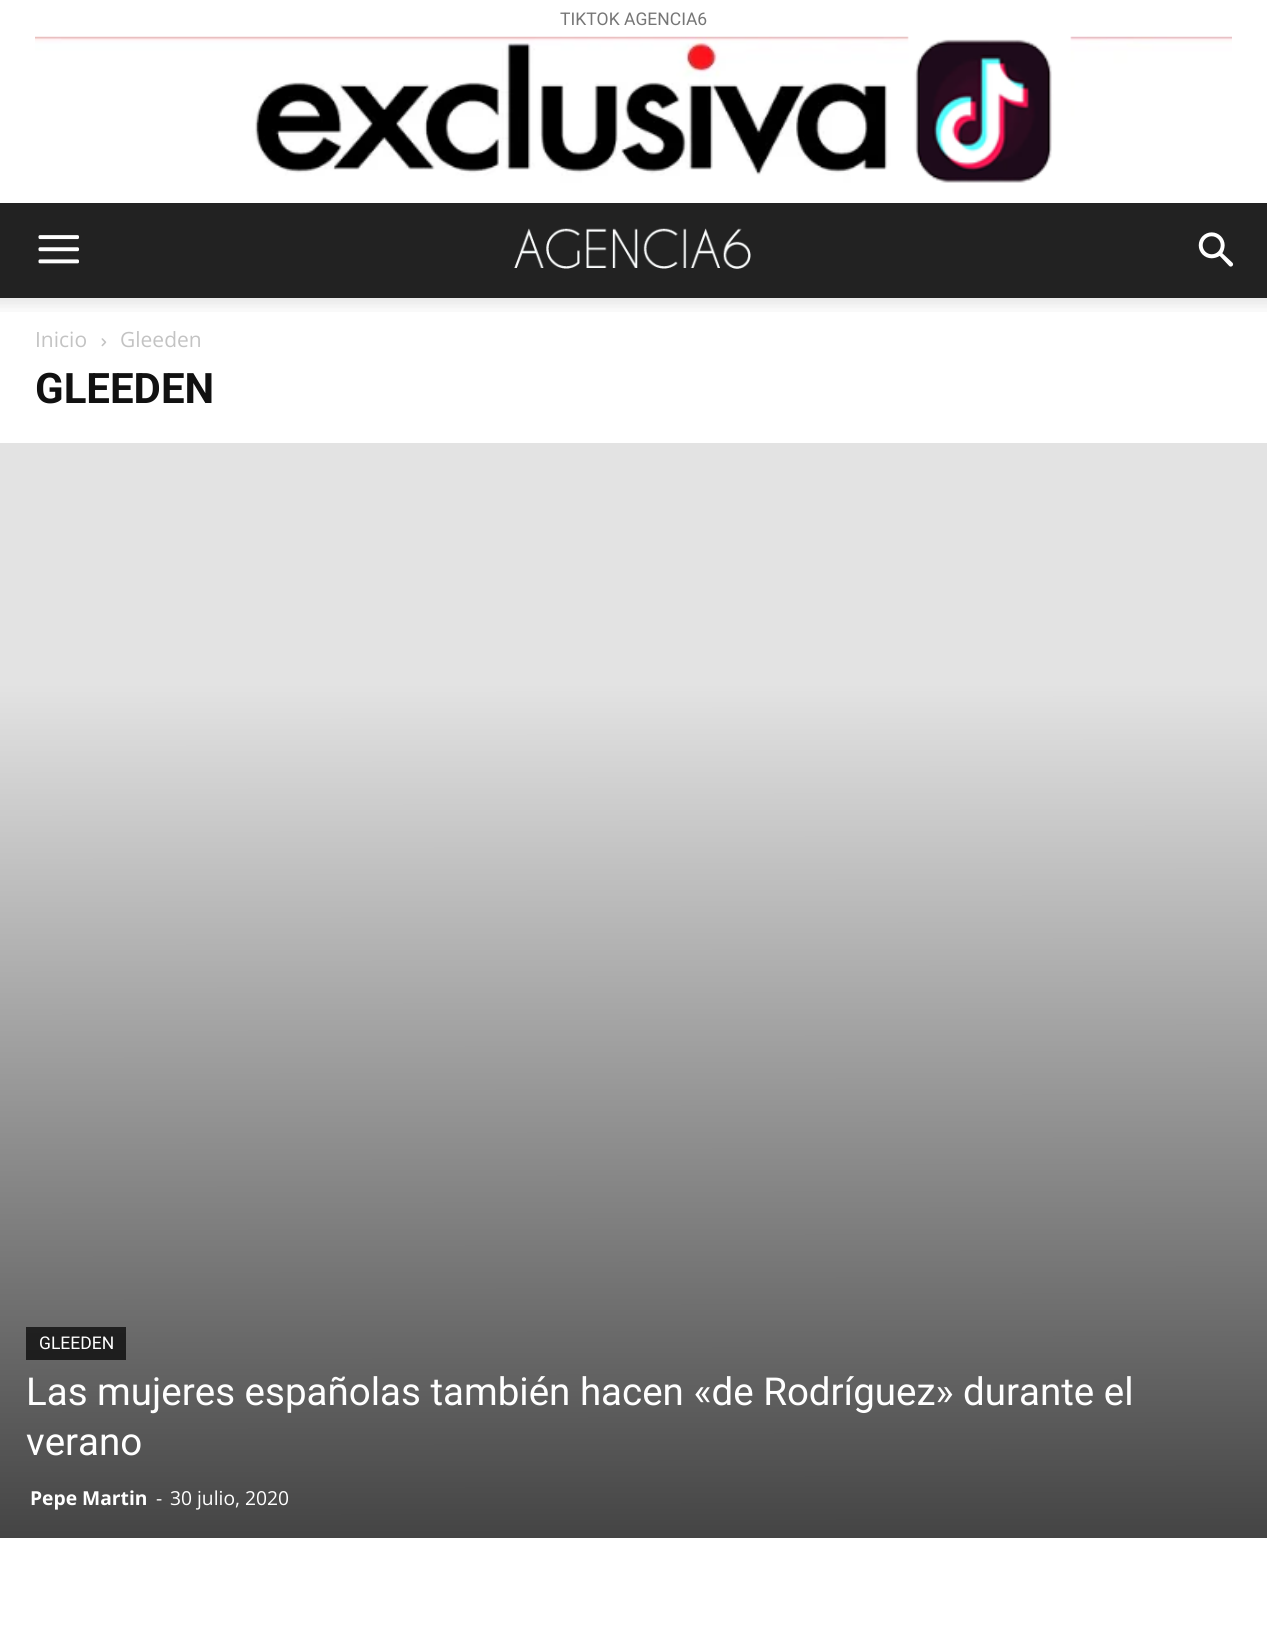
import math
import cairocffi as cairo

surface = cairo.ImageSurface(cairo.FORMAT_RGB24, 1267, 1629)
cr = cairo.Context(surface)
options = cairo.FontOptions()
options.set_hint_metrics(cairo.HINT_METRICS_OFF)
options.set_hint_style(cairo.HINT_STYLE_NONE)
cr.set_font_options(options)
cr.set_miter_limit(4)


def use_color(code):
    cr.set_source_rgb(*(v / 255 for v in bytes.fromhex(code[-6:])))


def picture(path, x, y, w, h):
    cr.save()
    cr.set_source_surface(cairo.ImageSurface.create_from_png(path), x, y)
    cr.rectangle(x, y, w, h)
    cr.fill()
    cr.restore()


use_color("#ffffff")
cr.paint()
cr.select_font_face("Roboto")
cr.set_font_size(17.5)
use_color("#767676")
cr.move_to(560, 25)
cr.show_text("TIKTOK AGENCIA6")
picture("img1.png", 35, 36, 1197, 147)
use_color("#222222")
cr.rectangle(0, 203, 1267, 95)
cr.fill()
picture("img2.png", 38, 235, 41, 29)
picture("img3.png", 514, 228, 237, 41)
picture("img4.png", 1198, 232, 36, 35)
picture("img5.png", 0, 298, 1267, 14)
cr.select_font_face("Open Sans")
cr.set_font_size(21)
use_color("#c3c3c3")
cr.move_to(35, 347)
cr.show_text("Inicio")
picture("img6.png", 101, 338, 6, 9)
cr.move_to(120, 347)
cr.show_text("Gleeden")
cr.select_font_face("Roboto", cairo.FONT_SLANT_NORMAL, cairo.FONT_WEIGHT_BOLD)
cr.set_font_size(42)
use_color("#111111")
cr.move_to(35, 403)
cr.show_text("GLEEDEN")
gradient = cairo.LinearGradient(633, 114, 634, 1538)
gradient.add_color_stop_rgba(0.4, 0.89, 0.89, 0.89, 1)
gradient.add_color_stop_rgba(1, 0.267, 0.267, 0.267, 1)
cr.set_source(gradient)
cr.rectangle(0, 443, 1267, 1095)
cr.fill()
gradient = cairo.LinearGradient(633, 114, 634, 1538)
gradient.add_color_stop_rgba(0.4, 0.267, 0.267, 0.267, 1)
gradient.add_color_stop_rgba(1, 0.078, 0.078, 0.078, 1)
cr.set_source(gradient)
cr.rectangle(26, 1327, 100, 33)
cr.fill()
cr.select_font_face("Roboto")
cr.set_font_size(17.5)
use_color("#ffffff")
cr.move_to(39, 1349)
cr.show_text("GLEEDEN")
cr.set_font_size(38.5)
cr.move_to(26, 1405)
cr.show_text("Las mujeres españolas también hacen «de Rodríguez» durante el")
cr.move_to(26, 1455)
cr.show_text("verano")
cr.select_font_face("Open Sans", cairo.FONT_SLANT_NORMAL, cairo.FONT_WEIGHT_BOLD)
cr.set_font_size(19.25)
cr.move_to(30, 1505)
cr.show_text("Pepe Martin")
cr.select_font_face("Open Sans")
cr.move_to(156, 1505)
cr.show_text("-")
cr.move_to(170, 1505)
cr.show_text("30 julio, 2020")
surface.write_to_png("result.png")
